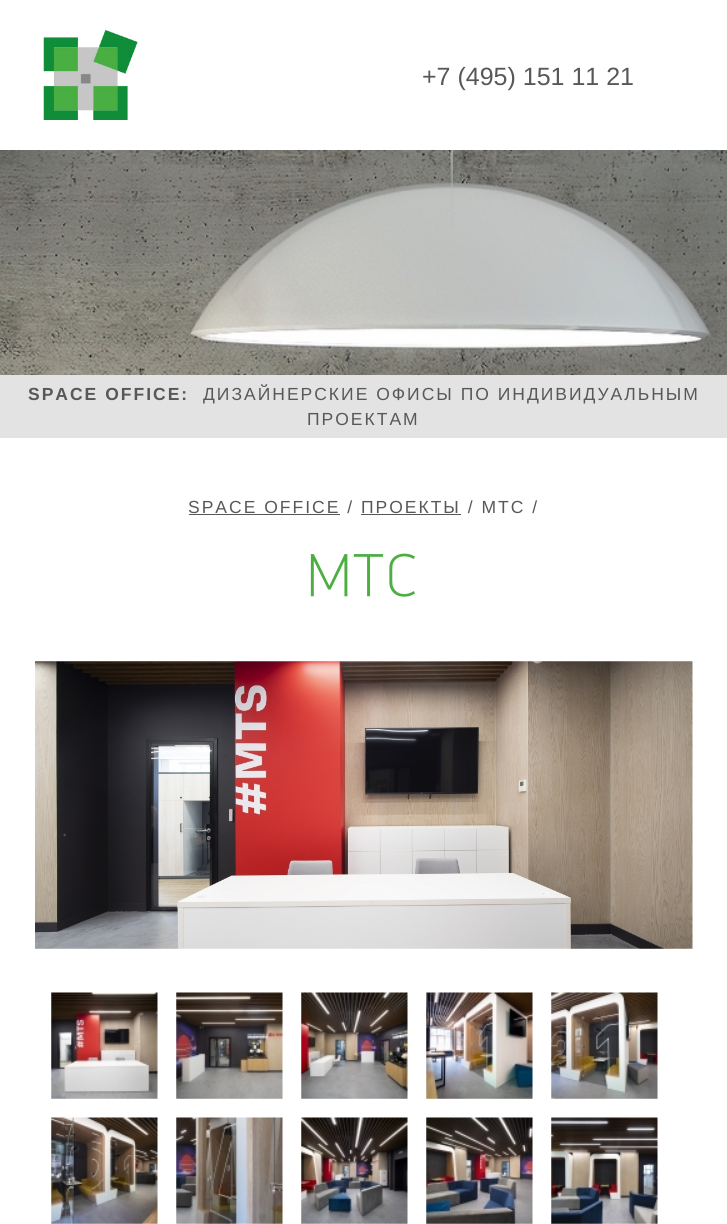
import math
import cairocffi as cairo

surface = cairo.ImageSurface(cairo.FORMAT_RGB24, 727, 1224)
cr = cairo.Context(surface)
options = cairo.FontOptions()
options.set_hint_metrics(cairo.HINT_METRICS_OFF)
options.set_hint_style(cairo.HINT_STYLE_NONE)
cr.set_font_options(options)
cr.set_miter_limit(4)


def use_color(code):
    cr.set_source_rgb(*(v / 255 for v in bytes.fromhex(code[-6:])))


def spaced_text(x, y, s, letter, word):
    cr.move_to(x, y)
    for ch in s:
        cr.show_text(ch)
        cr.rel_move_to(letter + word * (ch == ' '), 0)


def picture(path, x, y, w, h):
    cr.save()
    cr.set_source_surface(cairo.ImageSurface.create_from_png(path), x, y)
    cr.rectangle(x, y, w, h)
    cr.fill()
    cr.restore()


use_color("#ffffff")
cr.paint()
picture("img1.png", 43, 30, 95, 90)
cr.select_font_face("Liberation Sans")
cr.set_font_size(25)
use_color("#585858")
cr.move_to(422, 85)
cr.show_text("+7 (495) 151 11 21")
picture("img2.png", 0, 150, 727, 225)
use_color("#e3e3e3")
cr.rectangle(0, 375, 727, 63)
cr.fill()
cr.select_font_face("Liberation Sans", cairo.FONT_SLANT_NORMAL, cairo.FONT_WEIGHT_BOLD)
cr.set_font_size(17.5)
use_color("#585858")
spaced_text(28, 400, "SPACE OFFICE:", 2, 0)
cr.select_font_face("Liberation Sans")
spaced_text(203, 400, "ДИЗАЙНЕРСКИЕ ОФИСЫ ПО ИНДИВИДУАЛЬНЫМ", 2, 0)
spaced_text(307, 425, "ПРОЕКТАМ", 2, 0)
spaced_text(188, 513, "SPACE OFFICE / ПРОЕКТЫ / МТС /", 2, 0)
cr.rectangle(189, 514, 151, 1)
cr.fill()
cr.rectangle(361, 514, 100, 1)
cr.fill()
picture("img3.png", 310, 553, 105, 44)
picture("img4.png", 35, 661, 658, 288)
picture("img5.png", 51, 992, 107, 107)
picture("img6.png", 176, 992, 107, 107)
picture("img7.png", 301, 992, 107, 107)
picture("img8.png", 426, 992, 107, 107)
picture("img9.png", 551, 992, 107, 107)
picture("img10.png", 51, 1117, 107, 107)
picture("img11.png", 176, 1117, 107, 107)
picture("img12.png", 301, 1117, 107, 107)
picture("img13.png", 426, 1117, 107, 107)
picture("img14.png", 551, 1117, 107, 107)
surface.write_to_png("result.png")
